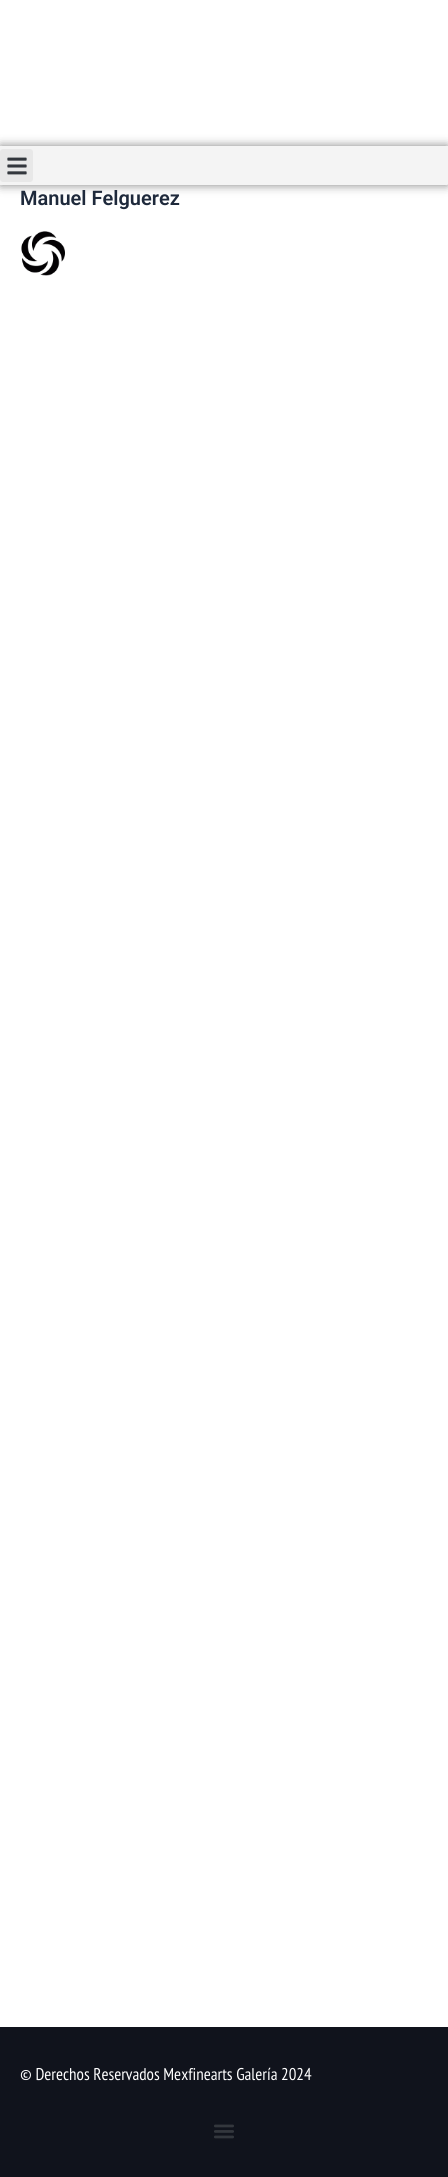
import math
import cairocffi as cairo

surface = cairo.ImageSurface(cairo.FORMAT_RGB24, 448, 2177)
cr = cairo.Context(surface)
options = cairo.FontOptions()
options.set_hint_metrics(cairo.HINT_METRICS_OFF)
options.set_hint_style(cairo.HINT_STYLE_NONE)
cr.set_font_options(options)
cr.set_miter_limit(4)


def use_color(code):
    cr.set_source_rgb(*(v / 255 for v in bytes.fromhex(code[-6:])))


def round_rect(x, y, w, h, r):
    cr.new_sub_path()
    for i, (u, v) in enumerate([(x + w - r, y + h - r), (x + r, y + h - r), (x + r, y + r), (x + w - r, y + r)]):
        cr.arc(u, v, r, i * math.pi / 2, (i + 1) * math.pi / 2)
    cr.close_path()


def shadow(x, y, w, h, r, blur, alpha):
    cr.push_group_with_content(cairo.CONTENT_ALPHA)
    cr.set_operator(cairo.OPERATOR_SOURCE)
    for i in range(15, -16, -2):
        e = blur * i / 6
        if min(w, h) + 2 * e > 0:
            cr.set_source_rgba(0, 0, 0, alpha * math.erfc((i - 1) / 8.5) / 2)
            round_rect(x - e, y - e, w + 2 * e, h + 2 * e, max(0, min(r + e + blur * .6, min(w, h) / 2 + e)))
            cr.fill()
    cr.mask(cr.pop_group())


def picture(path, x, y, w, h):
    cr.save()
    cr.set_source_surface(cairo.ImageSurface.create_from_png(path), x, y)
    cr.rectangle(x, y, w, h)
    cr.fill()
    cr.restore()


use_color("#ffffff")
cr.paint()
use_color("#000000")
shadow(0, 146, 448, 39, 1, 5, 0.5)
use_color("#f4f4f4")
cr.new_path()
cr.move_to(0, 146)
cr.line_to(448, 146)
cr.line_to(448, 184)
cr.curve_to(448, 184.5, 447.5, 185, 447, 185)
cr.line_to(0, 185)
cr.close_path()
cr.fill()
use_color("#e8e8e8")
round_rect(0, 149, 33, 33, 3)
cr.fill()
picture("img1.png", 7, 157, 20, 18)
cr.select_font_face("Roboto SemiBold")
cr.set_font_size(20)
use_color("#1e293b")
cr.move_to(20, 205)
cr.show_text("Manuel Felguerez")
picture("img2.png", 21, 231, 44, 45)
use_color("#10131c")
cr.rectangle(0, 2027, 448, 150)
cr.fill()
cr.select_font_face("PT Sans Narrow")
cr.set_font_size(17)
use_color("#ffffff")
cr.move_to(20, 2080)
cr.show_text("© Derechos Reservados Mexfinearts Galería 2024")
picture("img3.png", 214, 2124, 20, 15)
surface.write_to_png("result.png")
